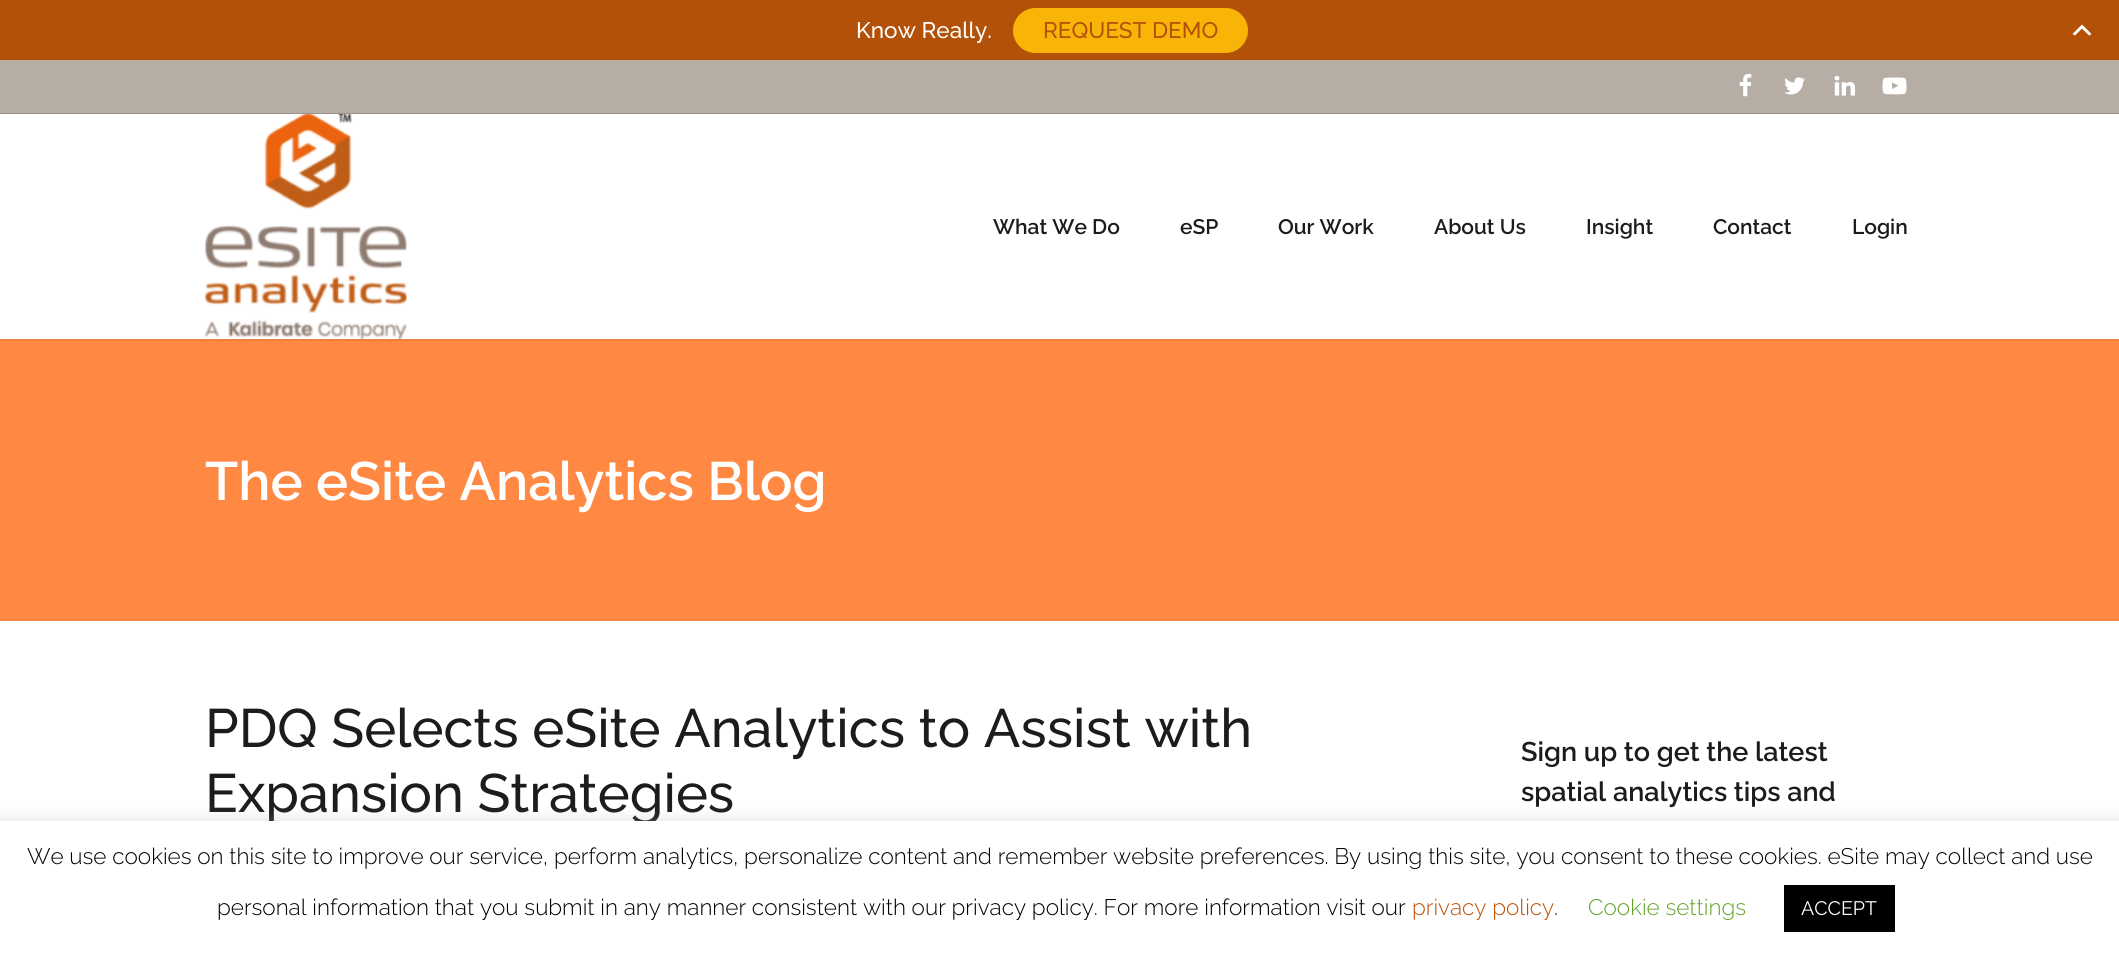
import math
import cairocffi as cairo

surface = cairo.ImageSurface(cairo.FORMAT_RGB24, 2119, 957)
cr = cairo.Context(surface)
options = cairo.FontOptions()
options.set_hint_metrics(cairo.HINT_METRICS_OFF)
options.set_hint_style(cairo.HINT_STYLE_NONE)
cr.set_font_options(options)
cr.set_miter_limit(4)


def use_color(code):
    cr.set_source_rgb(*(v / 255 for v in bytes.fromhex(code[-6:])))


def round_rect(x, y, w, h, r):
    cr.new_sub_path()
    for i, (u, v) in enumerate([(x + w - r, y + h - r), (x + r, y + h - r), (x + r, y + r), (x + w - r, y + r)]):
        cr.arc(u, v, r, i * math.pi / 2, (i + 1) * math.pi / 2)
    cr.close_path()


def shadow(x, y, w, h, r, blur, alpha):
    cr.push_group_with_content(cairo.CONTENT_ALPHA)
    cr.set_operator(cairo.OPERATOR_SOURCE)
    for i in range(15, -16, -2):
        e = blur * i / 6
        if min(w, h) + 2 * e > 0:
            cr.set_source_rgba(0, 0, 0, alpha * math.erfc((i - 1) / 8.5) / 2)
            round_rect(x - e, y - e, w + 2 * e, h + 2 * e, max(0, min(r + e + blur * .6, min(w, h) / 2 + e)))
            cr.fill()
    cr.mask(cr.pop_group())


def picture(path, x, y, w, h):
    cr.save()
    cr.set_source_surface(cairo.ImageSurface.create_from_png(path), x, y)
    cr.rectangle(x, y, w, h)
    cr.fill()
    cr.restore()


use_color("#ffffff")
cr.paint()
use_color("#b35108")
cr.rectangle(0, 0, 2119, 60)
cr.fill()
cr.select_font_face("Raleway Medium")
cr.set_font_size(22.5)
use_color("#ffffff")
cr.move_to(856, 38)
cr.show_text("Know Really.")
use_color("#f8b508")
round_rect(1013, 8, 235, 45, 22.5)
cr.fill()
use_color("#b35108")
cr.move_to(1043, 38)
cr.show_text("REQUEST DEMO")
use_color("#ffffff")
cr.new_path()
cr.move_to(2089, 35.5)
cr.line_to(2082, 28.5)
cr.line_to(2075, 35.5)
cr.line_to(2072.5, 34)
cr.line_to(2082, 24.5)
cr.line_to(2091.5, 34)
cr.close_path()
cr.fill()
use_color("#b6ada5")
cr.rectangle(0, 60, 2119, 53)
cr.fill()
picture("img1.png", 1739, 73, 13, 24)
picture("img2.png", 1784, 77, 21, 18)
picture("img3.png", 1834, 76, 22, 20)
picture("img4.png", 1882, 77, 25, 18)
use_color("#9a928c")
cr.new_path()
cr.move_to(0, 113)
cr.line_to(0, 114)
cr.line_to(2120, 114)
cr.line_to(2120, 338)
cr.line_to(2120, 113)
cr.close_path()
cr.fill()
use_color("#f0803e")
cr.new_path()
cr.move_to(0, 339)
cr.line_to(0, 341)
cr.line_to(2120, 341)
cr.line_to(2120, 116)
cr.line_to(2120, 339)
cr.close_path()
cr.fill()
picture("img5.png", 205, 114, 202, 225)
cr.select_font_face("Raleway SemiBold")
cr.set_font_size(21)
use_color("#1c1c1c")
cr.move_to(993, 234)
cr.show_text("What We Do")
cr.move_to(1180, 234)
cr.show_text("eSP")
cr.move_to(1278, 234)
cr.show_text("Our Work")
cr.move_to(1434, 234)
cr.show_text("About Us")
cr.move_to(1586, 234)
cr.show_text("Insight")
cr.move_to(1713, 234)
cr.show_text("Contact")
cr.move_to(1852, 234)
cr.show_text("Login")
use_color("#ff8842")
cr.rectangle(0, 341, 2119, 280)
cr.fill()
cr.set_font_size(54)
use_color("#ffffff")
cr.move_to(205, 500)
cr.show_text("The eSite Analytics Blog")
cr.select_font_face("Raleway Medium")
use_color("#1c1c1c")
cr.move_to(205, 747)
cr.show_text("PDQ Selects eSite Analytics to Assist with")
cr.move_to(205, 812)
cr.show_text("Expansion Strategies")
cr.select_font_face("Raleway SemiBold")
cr.set_font_size(27)
cr.move_to(1521, 761)
cr.show_text("Sign up to get the latest")
cr.move_to(1521, 801)
cr.show_text("spatial analytics tips and")
use_color("#acabab")
shadow(0, 819, 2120, 137, 0, 7.5, 0.3)
use_color("#ffffff")
cr.rectangle(0, 821, 2119, 136)
cr.fill()
cr.select_font_face("Raleway Light")
cr.set_font_size(22.5)
use_color("#000000")
cr.move_to(27, 864)
cr.show_text("We use cookies on this site to improve our service, perform analytics, personalize content and remember website preferences. By using this site, you consent to these cookies. eSite may collect and use")
cr.move_to(217, 915)
cr.show_text("personal information that you submit in any manner consistent with our privacy policy. For more information visit our")
use_color("#be5108")
cr.move_to(1412, 915)
cr.show_text("privacy policy")
use_color("#000000")
cr.move_to(1554, 915)
cr.show_text(".")
use_color("#62a329")
cr.move_to(1588, 915)
cr.show_text("Cookie settings")
use_color("#000000")
cr.rectangle(1784, 885, 111, 47)
cr.fill()
cr.select_font_face("Raleway")
cr.set_font_size(19.5)
use_color("#ffffff")
cr.move_to(1801, 915)
cr.show_text("ACCEPT")
surface.write_to_png("result.png")
